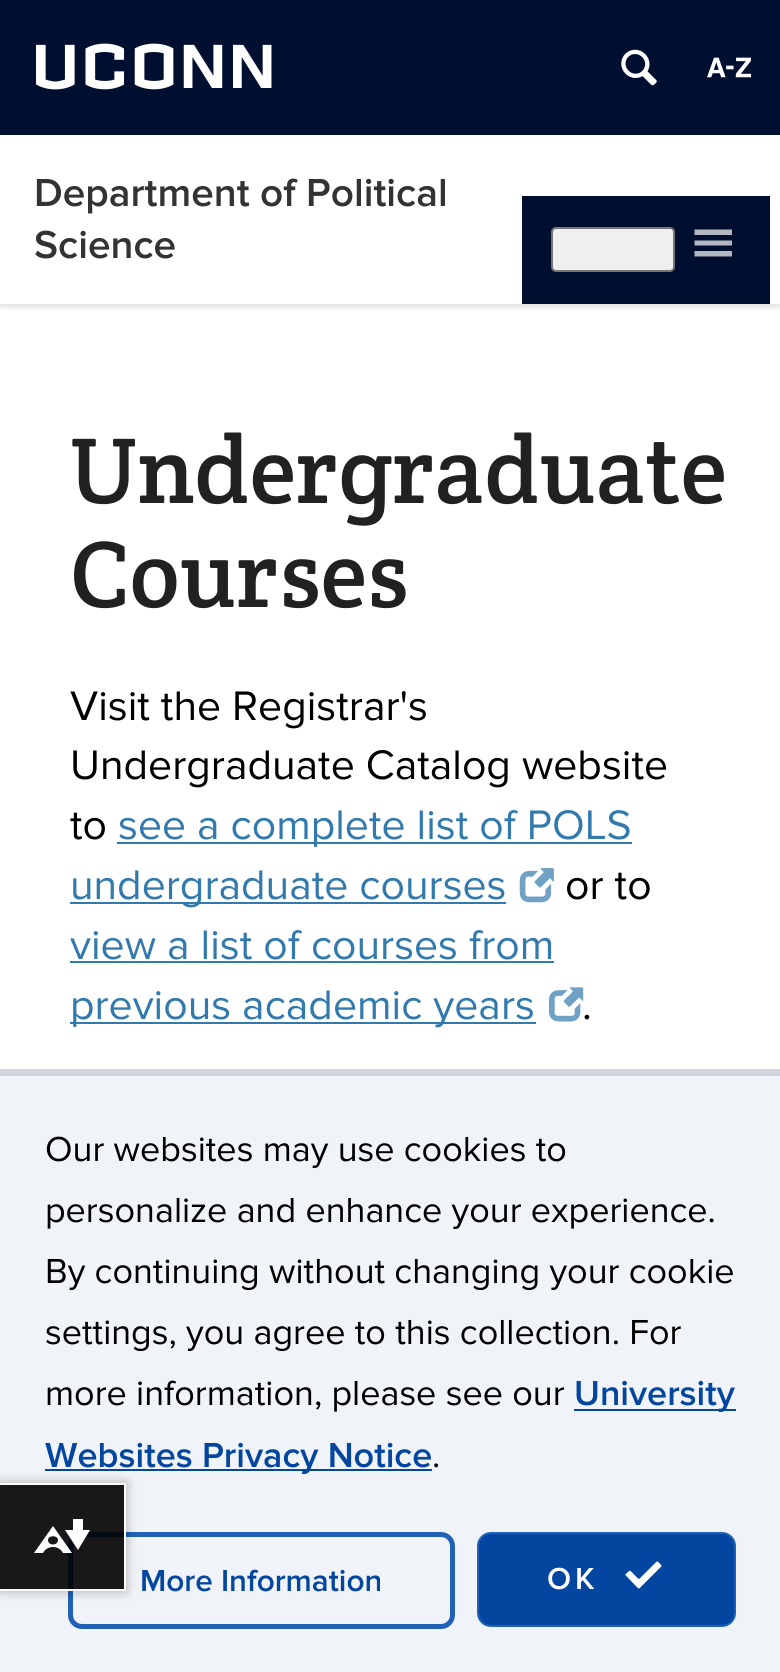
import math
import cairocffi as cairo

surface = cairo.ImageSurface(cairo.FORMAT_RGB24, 780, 1672)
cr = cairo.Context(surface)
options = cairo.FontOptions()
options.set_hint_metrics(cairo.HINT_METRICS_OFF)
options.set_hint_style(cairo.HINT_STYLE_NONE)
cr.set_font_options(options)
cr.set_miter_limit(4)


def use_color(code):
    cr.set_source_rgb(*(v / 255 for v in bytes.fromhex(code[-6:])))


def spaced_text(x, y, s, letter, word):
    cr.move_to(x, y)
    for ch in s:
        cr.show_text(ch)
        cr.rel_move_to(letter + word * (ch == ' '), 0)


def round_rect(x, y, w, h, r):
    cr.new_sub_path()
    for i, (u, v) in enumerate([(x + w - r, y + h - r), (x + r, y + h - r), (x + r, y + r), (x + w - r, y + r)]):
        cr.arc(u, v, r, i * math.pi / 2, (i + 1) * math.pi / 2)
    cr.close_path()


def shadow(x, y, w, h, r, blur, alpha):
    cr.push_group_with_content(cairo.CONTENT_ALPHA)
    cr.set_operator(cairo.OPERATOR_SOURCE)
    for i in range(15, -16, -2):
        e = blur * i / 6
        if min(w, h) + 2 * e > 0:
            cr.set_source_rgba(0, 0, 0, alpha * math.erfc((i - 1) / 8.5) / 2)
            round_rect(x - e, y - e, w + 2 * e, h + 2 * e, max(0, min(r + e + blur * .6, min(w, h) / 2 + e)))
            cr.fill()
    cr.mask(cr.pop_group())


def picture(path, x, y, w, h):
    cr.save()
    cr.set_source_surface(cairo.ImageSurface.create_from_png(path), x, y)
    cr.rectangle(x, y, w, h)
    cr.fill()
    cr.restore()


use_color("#ffffff")
cr.paint()
use_color("#000e2f")
cr.rectangle(0, 0, 780, 135)
cr.fill()
cr.select_font_face("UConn")
cr.set_font_size(72)
use_color("#ffffff")
spaced_text(36, 88, "UCONN", 6.75, 0)
picture("img1.png", 621, 49, 36, 37)
picture("img2.png", 707, 57, 44, 21)
use_color("#000000")
shadow(0, 140, 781, 168, 0, 2, 0.1)
use_color("#ffffff")
cr.rectangle(0, 137, 780, 167)
cr.fill()
cr.select_font_face("Proxima Nova SemiBold")
cr.set_font_size(40.5)
use_color("#333333")
cr.move_to(34, 206)
cr.show_text("Department of Political")
cr.move_to(34, 258)
cr.show_text("Science")
use_color("#000e2f")
cr.rectangle(522, 196, 248, 108)
cr.fill()
use_color("#efefef")
round_rect(552, 228, 122, 43, 4)
cr.fill_preserve()
use_color("#767676")
cr.stroke()
use_color("#b3b7c1")
cr.new_path()
cr.move_to(694.5, 256.5)
cr.line_to(732, 256.5)
cr.line_to(732, 251)
cr.line_to(694.5, 251)
cr.close_path()
cr.move_to(694.5, 229.5)
cr.line_to(694.5, 235)
cr.line_to(732, 235)
cr.line_to(732, 229.5)
cr.close_path()
cr.move_to(694.5, 245.5)
cr.line_to(732, 245.5)
cr.line_to(732, 240.5)
cr.line_to(694.5, 240.5)
cr.close_path()
cr.fill()
cr.select_font_face("Crete Round")
cr.set_font_size(94.5)
use_color("#212121")
cr.move_to(70, 503)
cr.show_text("Undergraduate")
cr.move_to(70, 607)
cr.show_text("Courses")
cr.select_font_face("Proxima Nova")
cr.set_font_size(42.75)
use_color("#000000")
cr.move_to(70, 720)
cr.show_text("Visit the Registrar's")
cr.move_to(70, 779)
cr.show_text("Undergraduate Catalog website")
use_color("#327aae")
cr.rectangle(117, 842, 515, 2)
cr.fill()
cr.move_to(118, 839)
cr.show_text("see a complete list of POLS")
cr.rectangle(70, 902, 436, 2)
cr.fill()
cr.move_to(70, 899)
cr.show_text("undergraduate courses")
picture("img3.png", 519, 868, 35, 35)
use_color("#000000")
cr.move_to(70, 839)
cr.show_text("to")
cr.move_to(565, 899)
cr.show_text("or to")
use_color("#327aae")
cr.move_to(70, 959)
cr.show_text("view a list of courses from")
cr.rectangle(70, 961, 484, 2)
cr.fill()
cr.rectangle(70, 1022, 466, 2)
cr.fill()
cr.move_to(70, 1019)
cr.show_text("previous academic years")
picture("img4.png", 549, 987, 35, 35)
use_color("#000000")
cr.move_to(582, 1019)
cr.show_text(".")
use_color("#f0f3f7")
cr.rectangle(0, 1076, 780, 596)
cr.fill()
use_color("#cfd5dd")
cr.rectangle(0, 1069, 780, 7)
cr.fill()
cr.set_font_size(36)
use_color("#000000")
cr.move_to(45, 1161)
cr.show_text("Our websites may use cookies to")
cr.move_to(45, 1222)
cr.show_text("personalize and enhance your experience.")
cr.move_to(45, 1283)
cr.show_text("By continuing without changing your cookie")
cr.move_to(45, 1344)
cr.show_text("settings, you agree to this collection. For")
cr.move_to(45, 1405)
cr.show_text("more information, please see our")
use_color("#03469f")
cr.rectangle(574, 1409, 162, 2)
cr.fill()
cr.select_font_face("Proxima Nova SemiBold")
cr.move_to(574, 1405)
cr.show_text("University")
cr.rectangle(45, 1469, 387, 2)
cr.fill()
cr.move_to(45, 1467)
cr.show_text("Websites Privacy Notice")
cr.select_font_face("Proxima Nova")
use_color("#000000")
cr.move_to(432, 1467)
cr.show_text(".")
round_rect(70.5, 1534.5, 382, 92, 11.5)
use_color("#2061b6")
cr.set_line_width(5)
cr.stroke()
cr.select_font_face("Proxima Nova SemiBold")
cr.set_font_size(31.5)
use_color("#03469f")
cr.move_to(140, 1591)
cr.show_text("More Information")
round_rect(478, 1533, 257, 93, 13)
cr.fill_preserve()
use_color("#2061b6")
cr.set_line_width(2)
cr.stroke()
use_color("#ffffff")
spaced_text(547, 1589, "OK", 4, 0)
picture("img5.png", 625, 1561, 37, 28)
cr.save()
cr.set_fill_rule(cairo.FILL_RULE_EVEN_ODD)
cr.new_path()
cr.move_to(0, 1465)
cr.line_to(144, 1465)
cr.line_to(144, 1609)
cr.line_to(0, 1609)
cr.close_path()
cr.move_to(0, 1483)
cr.line_to(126, 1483)
cr.line_to(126, 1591)
cr.line_to(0, 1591)
cr.close_path()
cr.clip()
use_color("#000000")
shadow(0, 1483, 126, 108, 0, 5.5, 0.3)
cr.restore()
cr.set_source_rgba(0, 0, 0, 0.9)
cr.rectangle(0, 1485, 124, 104)
cr.fill()
use_color("#ffffff")
cr.rectangle(0, 1483, 126, 2)
cr.fill()
cr.rectangle(124, 1483, 2, 108)
cr.fill()
cr.rectangle(0, 1589, 126, 2)
cr.fill()
cr.set_fill_rule(cairo.FILL_RULE_EVEN_ODD)
cr.new_path()
cr.move_to(90, 1530)
cr.line_to(78, 1550)
cr.line_to(65, 1530)
cr.line_to(73, 1530)
cr.line_to(73, 1519)
cr.line_to(83, 1519)
cr.line_to(83, 1530)
cr.close_path()
cr.move_to(34, 1553)
cr.line_to(53, 1526)
cr.line_to(72, 1553)
cr.line_to(63, 1553)
cr.curve_to(59, 1545, 47, 1545, 43, 1553)
cr.close_path()
cr.move_to(48, 1540)
cr.curve_to(48, 1546, 58, 1546, 58, 1540)
cr.curve_to(58, 1535, 48, 1535, 48, 1540)
cr.close_path()
cr.fill()
surface.write_to_png("result.png")
